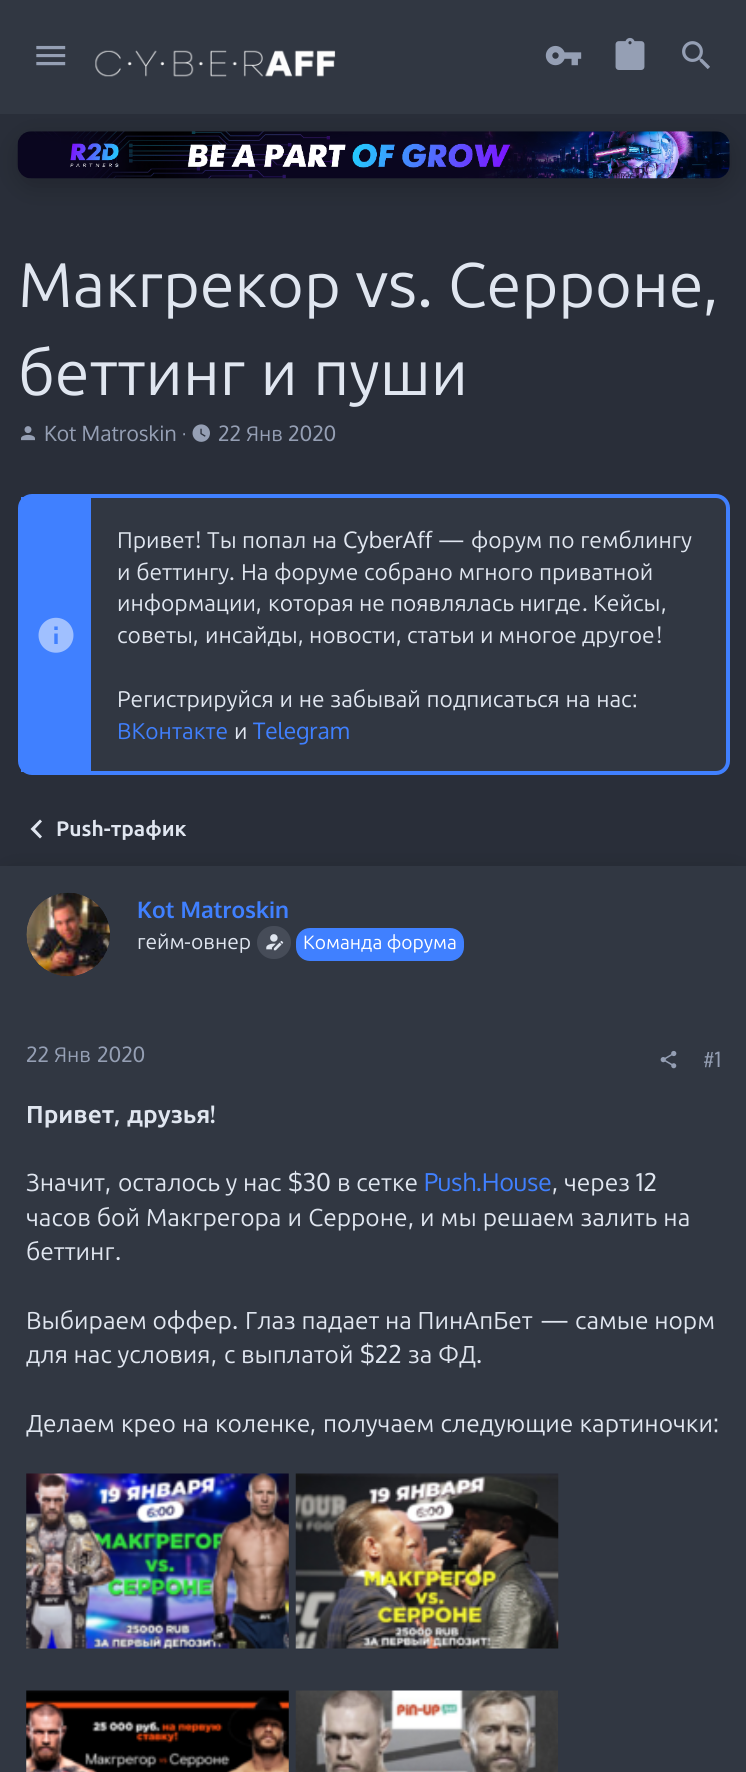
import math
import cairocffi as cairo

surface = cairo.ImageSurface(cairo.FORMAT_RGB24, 746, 1772)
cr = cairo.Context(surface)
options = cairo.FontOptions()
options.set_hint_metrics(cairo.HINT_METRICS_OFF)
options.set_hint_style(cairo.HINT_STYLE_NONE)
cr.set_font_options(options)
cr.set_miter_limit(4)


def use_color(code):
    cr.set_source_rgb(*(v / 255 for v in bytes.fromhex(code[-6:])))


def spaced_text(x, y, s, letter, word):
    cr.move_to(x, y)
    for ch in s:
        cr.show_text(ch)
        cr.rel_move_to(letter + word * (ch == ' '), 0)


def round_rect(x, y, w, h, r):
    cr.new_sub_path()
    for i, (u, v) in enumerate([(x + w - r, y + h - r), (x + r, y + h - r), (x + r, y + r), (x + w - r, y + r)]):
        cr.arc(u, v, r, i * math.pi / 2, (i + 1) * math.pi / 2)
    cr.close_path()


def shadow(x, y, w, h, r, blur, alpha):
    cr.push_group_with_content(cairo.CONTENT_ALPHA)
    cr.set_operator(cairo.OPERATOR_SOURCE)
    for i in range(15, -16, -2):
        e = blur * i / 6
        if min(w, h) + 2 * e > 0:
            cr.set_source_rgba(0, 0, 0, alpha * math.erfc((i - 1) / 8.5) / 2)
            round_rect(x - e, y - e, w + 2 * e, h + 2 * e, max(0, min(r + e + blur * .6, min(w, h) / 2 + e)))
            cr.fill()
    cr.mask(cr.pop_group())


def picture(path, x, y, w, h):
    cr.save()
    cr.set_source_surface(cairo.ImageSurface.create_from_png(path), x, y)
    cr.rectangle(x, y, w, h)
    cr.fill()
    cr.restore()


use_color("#292e39")
cr.paint()
use_color("#000000")
shadow(18, 138, 712, 48, 14, 13, 0.2)
use_color("#313742")
cr.rectangle(0, 0, 746, 114)
cr.fill()
picture("img1.png", 36, 45, 30, 21)
picture("img2.png", 95, 50, 241, 27)
picture("img3.png", 545, 45, 37, 21)
picture("img4.png", 615, 37, 30, 33)
picture("img5.png", 682, 41, 28, 28)
picture("img6.png", 17, 131, 713, 48)
cr.select_font_face("Ubuntu")
cr.set_font_size(63)
use_color("#e0e6f0")
cr.move_to(18, 307)
cr.show_text("Макгрекор")
cr.select_font_face("Oxygen")
cr.move_to(356, 307)
cr.show_text("vs.")
cr.select_font_face("Ubuntu")
cr.move_to(448, 307)
cr.show_text("Серроне")
cr.select_font_face("Oxygen")
cr.move_to(703, 307)
cr.show_text(",")
cr.select_font_face("Ubuntu")
spaced_text(18, 395, "беттинг и пуши", 0, 1)
picture("img7.png", 21, 426, 14, 15)
cr.select_font_face("Oxygen")
cr.set_font_size(21)
use_color("#959fb4")
cr.move_to(44, 441)
cr.show_text("Kot Matroskin ·")
picture("img8.png", 192, 424, 18, 18)
cr.move_to(218, 441)
cr.show_text("22")
cr.select_font_face("Ubuntu")
cr.move_to(246, 441)
cr.show_text("Янв")
cr.select_font_face("Oxygen")
cr.move_to(288, 441)
cr.show_text("2020")
use_color("#313742")
round_rect(20, 496, 708, 277, 12)
cr.fill_preserve()
use_color("#4080ff")
cr.set_line_width(4)
cr.stroke()
cr.rectangle(21, 497, 70, 275)
cr.fill()
picture("img9.png", 38, 617, 36, 36)
cr.select_font_face("Ubuntu")
cr.set_font_size(22.75)
use_color("#e0e6f0")
cr.move_to(117, 548)
cr.show_text("Привет")
cr.select_font_face("Oxygen")
cr.move_to(195, 548)
cr.show_text("!")
cr.select_font_face("Ubuntu")
cr.move_to(207, 548)
cr.show_text("Ты")
cr.move_to(242, 548)
cr.show_text("попал")
cr.move_to(312, 548)
cr.show_text("на")
cr.select_font_face("Oxygen")
cr.move_to(343, 548)
cr.show_text("CyberAff —")
cr.select_font_face("Ubuntu")
spaced_text(471, 548, "форум по гемблингу", 0, 0.5)
spaced_text(117, 580, "и беттингу", 0, 0.5)
cr.select_font_face("Oxygen")
cr.move_to(229, 580)
cr.show_text(".")
cr.select_font_face("Ubuntu")
spaced_text(241, 580, "На форуме собрано мгного приватной", 0, 0.5)
cr.move_to(117, 611)
cr.show_text("информации")
cr.select_font_face("Oxygen")
cr.move_to(256, 611)
cr.show_text(",")
cr.select_font_face("Ubuntu")
cr.move_to(268, 611)
cr.show_text("которая не появлялась нигде")
cr.select_font_face("Oxygen")
cr.move_to(582, 611)
cr.show_text(".")
cr.select_font_face("Ubuntu")
cr.move_to(593, 611)
cr.show_text("Кейсы")
cr.select_font_face("Oxygen")
cr.move_to(661, 611)
cr.show_text(",")
cr.select_font_face("Ubuntu")
cr.move_to(117, 643)
cr.show_text("советы")
cr.select_font_face("Oxygen")
cr.move_to(193, 643)
cr.show_text(",")
cr.select_font_face("Ubuntu")
cr.move_to(205, 643)
cr.show_text("инсайды")
cr.select_font_face("Oxygen")
cr.move_to(298, 643)
cr.show_text(",")
cr.select_font_face("Ubuntu")
cr.move_to(309, 643)
cr.show_text("новости")
cr.select_font_face("Oxygen")
cr.move_to(396, 643)
cr.show_text(",")
cr.select_font_face("Ubuntu")
cr.move_to(407, 643)
cr.show_text("статьи и многое другое")
cr.select_font_face("Oxygen")
cr.move_to(656, 643)
cr.show_text("!")
cr.select_font_face("Ubuntu")
spaced_text(117, 707, "Регистрируйся и не забывай подписаться на нас", 0, 0.5)
cr.select_font_face("Oxygen")
cr.move_to(632, 707)
cr.show_text(":")
cr.select_font_face("Ubuntu")
use_color("#4080ff")
cr.move_to(117, 739)
cr.show_text("ВКонтакте")
use_color("#e0e6f0")
cr.move_to(234, 739)
cr.show_text("и")
cr.select_font_face("Oxygen")
use_color("#4080ff")
cr.move_to(253, 739)
cr.show_text("Telegram")
use_color("#000000")
shadow(0, 873, 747, 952, 14, 13, 0.2)
use_color("#e0e6f0")
cr.new_path()
cr.move_to(42, 836.5)
cr.line_to(35, 829)
cr.line_to(42, 821.5)
cr.line_to(40, 819.5)
cr.line_to(30.5, 829)
cr.line_to(40, 838.5)
cr.close_path()
cr.fill()
cr.select_font_face("Ubuntu", cairo.FONT_SLANT_NORMAL, cairo.FONT_WEIGHT_BOLD)
cr.set_font_size(21)
cr.move_to(56, 836)
cr.show_text("Push-трафик")
use_color("#313742")
cr.rectangle(0, 866, 746, 906)
cr.fill()
picture("img10.png", 26, 892, 84, 85)
cr.select_font_face("Oxygen", cairo.FONT_SLANT_NORMAL, cairo.FONT_WEIGHT_BOLD)
cr.set_font_size(22.75)
use_color("#4080ff")
cr.move_to(137, 918)
cr.show_text("Kot Matroskin")
cr.select_font_face("Ubuntu")
cr.set_font_size(21)
use_color("#e0e6f0")
cr.move_to(137, 949)
cr.show_text("гейм")
cr.select_font_face("Oxygen")
cr.move_to(184, 949)
cr.show_text("-")
cr.select_font_face("Ubuntu")
cr.move_to(191, 949)
cr.show_text("овнер")
use_color("#464c58")
round_rect(257, 926, 34, 33, 16.5)
cr.fill()
picture("img11.png", 266, 934, 18, 17)
use_color("#4080ff")
round_rect(297, 929, 166, 31, 13)
cr.fill_preserve()
cr.set_line_width(2)
cr.stroke()
cr.set_font_size(19.25)
use_color("#ffffff")
cr.move_to(303, 949)
cr.show_text("Команда форума")
cr.select_font_face("Oxygen")
cr.set_font_size(21)
use_color("#959fb4")
cr.move_to(26, 1062)
cr.show_text("22")
cr.select_font_face("Ubuntu")
cr.move_to(54, 1062)
cr.show_text("Янв")
cr.select_font_face("Oxygen")
cr.move_to(97, 1062)
cr.show_text("2020")
picture("img12.png", 660, 1050, 17, 19)
cr.move_to(703, 1067)
cr.show_text("#1")
cr.select_font_face("Ubuntu", cairo.FONT_SLANT_NORMAL, cairo.FONT_WEIGHT_BOLD)
cr.set_font_size(24.5)
use_color("#e0e6f0")
cr.move_to(26, 1123)
cr.show_text("Привет")
cr.select_font_face("Oxygen", cairo.FONT_SLANT_NORMAL, cairo.FONT_WEIGHT_BOLD)
cr.move_to(114, 1123)
cr.show_text(",")
cr.select_font_face("Ubuntu", cairo.FONT_SLANT_NORMAL, cairo.FONT_WEIGHT_BOLD)
cr.move_to(127, 1123)
cr.show_text("друзья")
cr.select_font_face("Oxygen", cairo.FONT_SLANT_NORMAL, cairo.FONT_WEIGHT_BOLD)
cr.move_to(210, 1123)
cr.show_text("!")
cr.select_font_face("Ubuntu")
cr.move_to(26, 1191)
cr.show_text("Значит")
cr.select_font_face("Oxygen")
cr.move_to(105, 1191)
cr.show_text(",")
cr.select_font_face("Ubuntu")
cr.move_to(118, 1191)
cr.show_text("осталось у нас")
cr.select_font_face("Oxygen")
cr.move_to(288, 1191)
cr.show_text("$30")
cr.select_font_face("Ubuntu")
cr.move_to(337, 1191)
cr.show_text("в сетке")
cr.select_font_face("Oxygen")
use_color("#4080ff")
cr.move_to(424, 1191)
cr.show_text("Push.House")
use_color("#e0e6f0")
cr.move_to(552, 1191)
cr.show_text(",")
cr.select_font_face("Ubuntu")
cr.move_to(564, 1191)
cr.show_text("через")
cr.select_font_face("Oxygen")
cr.move_to(636, 1191)
cr.show_text("12")
cr.select_font_face("Ubuntu")
spaced_text(26, 1226, "часов бой Макгрегора и Серроне", 0, 0.5)
cr.select_font_face("Oxygen")
cr.move_to(408, 1226)
cr.show_text(",")
cr.select_font_face("Ubuntu")
spaced_text(420, 1226, "и мы решаем залить на", 0, 0.5)
cr.move_to(26, 1260)
cr.show_text("беттинг")
cr.select_font_face("Oxygen")
cr.move_to(115, 1260)
cr.show_text(".")
cr.select_font_face("Ubuntu")
cr.move_to(26, 1329)
cr.show_text("Выбираем оффер")
cr.move_to(245, 1329)
cr.show_text("Глаз падает на ПинАпБет")
cr.select_font_face("Oxygen")
cr.move_to(540, 1329)
cr.show_text("—")
cr.select_font_face("Ubuntu")
cr.move_to(575, 1329)
cr.show_text("самые норм")
cr.select_font_face("Oxygen")
cr.move_to(232, 1329)
cr.show_text(".")
cr.select_font_face("Ubuntu")
cr.move_to(26, 1363)
cr.show_text("для нас условия")
cr.select_font_face("Oxygen")
cr.move_to(211, 1363)
cr.show_text(",")
cr.select_font_face("Ubuntu")
cr.move_to(224, 1363)
cr.show_text("с выплатой")
cr.select_font_face("Oxygen")
cr.move_to(360, 1363)
cr.show_text("$22")
cr.select_font_face("Ubuntu")
cr.move_to(408, 1363)
cr.show_text("за ФД")
cr.select_font_face("Oxygen")
cr.move_to(476, 1363)
cr.show_text(".")
cr.select_font_face("Ubuntu")
spaced_text(26, 1432, "Делаем крео на коленке", 0, 0.5)
cr.select_font_face("Oxygen")
cr.move_to(310, 1432)
cr.show_text(",")
cr.select_font_face("Ubuntu")
spaced_text(323, 1432, "получаем следующие картиночки", 0, 0.5)
cr.select_font_face("Oxygen")
cr.move_to(713, 1432)
cr.show_text(":")
picture("img13.png", 26, 1473, 263, 176)
picture("img14.png", 295, 1473, 264, 176)
picture("img15.png", 26, 1690, 263, 82)
picture("img16.png", 295, 1690, 263, 82)
surface.write_to_png("result.png")
